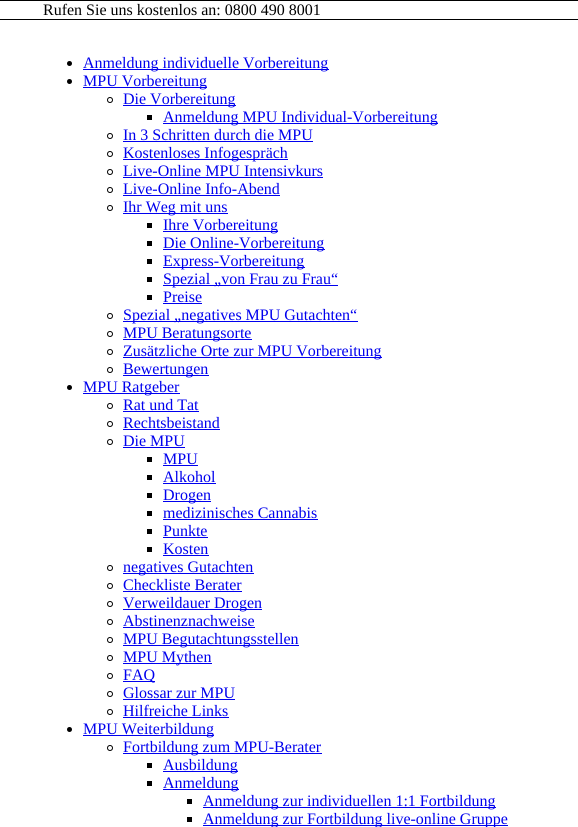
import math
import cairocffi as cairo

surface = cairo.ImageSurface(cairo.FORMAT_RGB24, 578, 827)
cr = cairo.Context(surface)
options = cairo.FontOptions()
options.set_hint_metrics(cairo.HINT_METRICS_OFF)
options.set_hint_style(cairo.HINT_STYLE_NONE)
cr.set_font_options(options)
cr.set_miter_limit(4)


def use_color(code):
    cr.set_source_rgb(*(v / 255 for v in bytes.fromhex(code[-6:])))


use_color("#ffffff")
cr.paint()
use_color("#000000")
cr.rectangle(0, 0, 578, 1)
cr.fill()
cr.select_font_face("Liberation Serif")
cr.set_font_size(16)
cr.move_to(43, 15)
cr.show_text("Rufen Sie uns kostenlos an: 0800 490 8001")
cr.rectangle(0, 19, 578, 1)
cr.fill()
cr.arc(69.5, 63.5, 2.5, 0, 2 * math.pi)
cr.fill()
use_color("#0000ee")
cr.rectangle(83, 69, 246, 1)
cr.fill()
cr.move_to(83, 68)
cr.show_text("Anmeldung individuelle Vorbereitung")
use_color("#000000")
cr.new_path()
cr.arc(69.5, 81.5, 2.5, 0, 2 * math.pi)
cr.fill()
use_color("#0000ee")
cr.rectangle(83, 87, 124, 1)
cr.fill()
cr.move_to(83, 86)
cr.show_text("MPU Vorbereitung")
cr.new_path()
cr.arc(110, 100, 2.5, 0, 2 * math.pi)
use_color("#000000")
cr.set_line_width(1)
cr.stroke()
use_color("#0000ee")
cr.rectangle(123, 105, 113, 1)
cr.fill()
cr.move_to(123, 104)
cr.show_text("Die Vorbereitung")
use_color("#000000")
cr.rectangle(147, 115, 5, 5)
cr.fill()
use_color("#0000ee")
cr.rectangle(163, 123, 275, 1)
cr.fill()
cr.move_to(163, 122)
cr.show_text("Anmeldung MPU Individual-Vorbereitung")
cr.new_path()
cr.arc(110, 136, 2.5, 0, 2 * math.pi)
use_color("#000000")
cr.stroke()
use_color("#0000ee")
cr.move_to(123, 140)
cr.show_text("In 3 Schritten durch die MPU")
cr.rectangle(123, 141, 190, 1)
cr.fill()
cr.arc(110, 154, 2.5, 0, 2 * math.pi)
use_color("#000000")
cr.stroke()
use_color("#0000ee")
cr.rectangle(123, 159, 165, 1)
cr.fill()
cr.move_to(123, 158)
cr.show_text("Kostenloses Infogespräch")
cr.new_path()
cr.arc(110, 172, 2.5, 0, 2 * math.pi)
use_color("#000000")
cr.stroke()
use_color("#0000ee")
cr.move_to(123, 176)
cr.show_text("Live-Online MPU Intensivkurs")
cr.rectangle(123, 177, 200, 1)
cr.fill()
cr.arc(110, 190, 2.5, 0, 2 * math.pi)
use_color("#000000")
cr.stroke()
use_color("#0000ee")
cr.move_to(123, 194)
cr.show_text("Live-Online Info-Abend")
cr.rectangle(123, 195, 157, 1)
cr.fill()
cr.arc(110, 208, 2.5, 0, 2 * math.pi)
use_color("#000000")
cr.stroke()
use_color("#0000ee")
cr.rectangle(123, 213, 105, 1)
cr.fill()
cr.move_to(123, 212)
cr.show_text("Ihr Weg mit uns")
use_color("#000000")
cr.rectangle(147, 223, 5, 5)
cr.fill()
use_color("#0000ee")
cr.rectangle(163, 231, 115, 1)
cr.fill()
cr.move_to(163, 230)
cr.show_text("Ihre Vorbereitung")
use_color("#000000")
cr.rectangle(147, 241, 5, 5)
cr.fill()
use_color("#0000ee")
cr.rectangle(163, 249, 162, 1)
cr.fill()
cr.move_to(163, 248)
cr.show_text("Die Online-Vorbereitung")
use_color("#000000")
cr.rectangle(147, 259, 5, 5)
cr.fill()
use_color("#0000ee")
cr.rectangle(163, 267, 142, 1)
cr.fill()
cr.move_to(163, 266)
cr.show_text("Express-Vorbereitung")
use_color("#000000")
cr.rectangle(147, 277, 5, 5)
cr.fill()
use_color("#0000ee")
cr.rectangle(163, 285, 175, 1)
cr.fill()
cr.move_to(163, 284)
cr.show_text("Spezial „von Frau zu Frau“")
use_color("#000000")
cr.rectangle(147, 295, 5, 5)
cr.fill()
use_color("#0000ee")
cr.move_to(163, 302)
cr.show_text("Preise")
cr.rectangle(163, 303, 39, 1)
cr.fill()
cr.arc(110, 316, 2.5, 0, 2 * math.pi)
use_color("#000000")
cr.stroke()
use_color("#0000ee")
cr.rectangle(123, 321, 235, 1)
cr.fill()
cr.move_to(123, 320)
cr.show_text("Spezial „negatives MPU Gutachten“")
cr.new_path()
cr.arc(110, 334, 2.5, 0, 2 * math.pi)
use_color("#000000")
cr.stroke()
use_color("#0000ee")
cr.rectangle(123, 339, 129, 1)
cr.fill()
cr.move_to(123, 338)
cr.show_text("MPU Beratungsorte")
cr.new_path()
cr.arc(110, 352, 2.5, 0, 2 * math.pi)
use_color("#000000")
cr.stroke()
use_color("#0000ee")
cr.rectangle(123, 357, 259, 1)
cr.fill()
cr.move_to(123, 356)
cr.show_text("Zusätzliche Orte zur MPU Vorbereitung")
cr.new_path()
cr.arc(110, 370, 2.5, 0, 2 * math.pi)
use_color("#000000")
cr.stroke()
use_color("#0000ee")
cr.rectangle(123, 375, 86, 1)
cr.fill()
cr.move_to(123, 374)
cr.show_text("Bewertungen")
use_color("#000000")
cr.new_path()
cr.arc(69.5, 387.5, 2.5, 0, 2 * math.pi)
cr.fill()
use_color("#0000ee")
cr.rectangle(83, 393, 97, 1)
cr.fill()
cr.move_to(83, 392)
cr.show_text("MPU Ratgeber")
cr.new_path()
cr.arc(110, 406, 2.5, 0, 2 * math.pi)
use_color("#000000")
cr.stroke()
use_color("#0000ee")
cr.move_to(123, 410)
cr.show_text("Rat und Tat")
cr.rectangle(123, 411, 76, 1)
cr.fill()
cr.arc(110, 424, 2.5, 0, 2 * math.pi)
use_color("#000000")
cr.stroke()
use_color("#0000ee")
cr.move_to(123, 428)
cr.show_text("Rechtsbeistand")
cr.rectangle(123, 429, 97, 1)
cr.fill()
cr.arc(110, 442, 2.5, 0, 2 * math.pi)
use_color("#000000")
cr.stroke()
use_color("#0000ee")
cr.move_to(123, 446)
cr.show_text("Die MPU")
cr.rectangle(123, 447, 62, 1)
cr.fill()
use_color("#000000")
cr.rectangle(147, 457, 5, 5)
cr.fill()
use_color("#0000ee")
cr.move_to(163, 464)
cr.show_text("MPU")
cr.rectangle(163, 465, 35, 1)
cr.fill()
use_color("#000000")
cr.rectangle(147, 475, 5, 5)
cr.fill()
use_color("#0000ee")
cr.move_to(163, 482)
cr.show_text("Alkohol")
cr.rectangle(163, 483, 53, 1)
cr.fill()
use_color("#000000")
cr.rectangle(147, 493, 5, 5)
cr.fill()
use_color("#0000ee")
cr.rectangle(163, 501, 48, 1)
cr.fill()
cr.move_to(163, 500)
cr.show_text("Drogen")
use_color("#000000")
cr.rectangle(147, 511, 5, 5)
cr.fill()
use_color("#0000ee")
cr.move_to(163, 518)
cr.show_text("medizinisches Cannabis")
cr.rectangle(163, 519, 155, 1)
cr.fill()
use_color("#000000")
cr.rectangle(147, 529, 5, 5)
cr.fill()
use_color("#0000ee")
cr.move_to(163, 536)
cr.show_text("Punkte")
cr.rectangle(163, 537, 45, 1)
cr.fill()
use_color("#000000")
cr.rectangle(147, 547, 5, 5)
cr.fill()
use_color("#0000ee")
cr.move_to(163, 554)
cr.show_text("Kosten")
cr.rectangle(163, 555, 46, 1)
cr.fill()
cr.arc(110, 568, 2.5, 0, 2 * math.pi)
use_color("#000000")
cr.stroke()
use_color("#0000ee")
cr.rectangle(123, 573, 131, 1)
cr.fill()
cr.move_to(123, 572)
cr.show_text("negatives Gutachten")
cr.new_path()
cr.arc(110, 586, 2.5, 0, 2 * math.pi)
use_color("#000000")
cr.stroke()
use_color("#0000ee")
cr.move_to(123, 590)
cr.show_text("Checkliste Berater")
cr.rectangle(123, 591, 119, 1)
cr.fill()
cr.arc(110, 604, 2.5, 0, 2 * math.pi)
use_color("#000000")
cr.stroke()
use_color("#0000ee")
cr.rectangle(123, 609, 139, 1)
cr.fill()
cr.move_to(123, 608)
cr.show_text("Verweildauer Drogen")
cr.new_path()
cr.arc(110, 622, 2.5, 0, 2 * math.pi)
use_color("#000000")
cr.stroke()
use_color("#0000ee")
cr.move_to(123, 626)
cr.show_text("Abstinenznachweise")
cr.rectangle(123, 627, 132, 1)
cr.fill()
cr.arc(110, 640, 2.5, 0, 2 * math.pi)
use_color("#000000")
cr.stroke()
use_color("#0000ee")
cr.rectangle(123, 645, 176, 1)
cr.fill()
cr.move_to(123, 644)
cr.show_text("MPU Begutachtungsstellen")
cr.new_path()
cr.arc(110, 658, 2.5, 0, 2 * math.pi)
use_color("#000000")
cr.stroke()
use_color("#0000ee")
cr.rectangle(123, 663, 89, 1)
cr.fill()
cr.move_to(123, 662)
cr.show_text("MPU Mythen")
cr.new_path()
cr.arc(110, 676, 2.5, 0, 2 * math.pi)
use_color("#000000")
cr.stroke()
use_color("#0000ee")
cr.rectangle(123, 681, 32, 1)
cr.fill()
cr.move_to(123, 680)
cr.show_text("FAQ")
cr.new_path()
cr.arc(110, 694, 2.5, 0, 2 * math.pi)
use_color("#000000")
cr.stroke()
use_color("#0000ee")
cr.move_to(123, 698)
cr.show_text("Glossar zur MPU")
cr.rectangle(123, 699, 112, 1)
cr.fill()
cr.arc(110, 712, 2.5, 0, 2 * math.pi)
use_color("#000000")
cr.stroke()
use_color("#0000ee")
cr.move_to(123, 716)
cr.show_text("Hilfreiche Links")
cr.rectangle(123, 717, 106, 1)
cr.fill()
use_color("#000000")
cr.arc(69.5, 729.5, 2.5, 0, 2 * math.pi)
cr.fill()
use_color("#0000ee")
cr.rectangle(83, 735, 131, 1)
cr.fill()
cr.move_to(83, 734)
cr.show_text("MPU Weiterbildung")
cr.new_path()
cr.arc(110, 748, 2.5, 0, 2 * math.pi)
use_color("#000000")
cr.stroke()
use_color("#0000ee")
cr.rectangle(123, 753, 199, 1)
cr.fill()
cr.move_to(123, 752)
cr.show_text("Fortbildung zum MPU-Berater")
use_color("#000000")
cr.rectangle(147, 763, 5, 5)
cr.fill()
use_color("#0000ee")
cr.rectangle(163, 771, 75, 1)
cr.fill()
cr.move_to(163, 770)
cr.show_text("Ausbildung")
use_color("#000000")
cr.rectangle(147, 781, 5, 5)
cr.fill()
use_color("#0000ee")
cr.rectangle(163, 789, 76, 1)
cr.fill()
cr.move_to(163, 788)
cr.show_text("Anmeldung")
use_color("#000000")
cr.rectangle(187, 799, 5, 5)
cr.fill()
use_color("#0000ee")
cr.rectangle(203, 807, 293, 1)
cr.fill()
cr.move_to(203, 806)
cr.show_text("Anmeldung zur individuellen 1:1 Fortbildung")
use_color("#000000")
cr.rectangle(187, 817, 5, 5)
cr.fill()
use_color("#0000ee")
cr.rectangle(203, 825, 305, 1)
cr.fill()
cr.move_to(203, 824)
cr.show_text("Anmeldung zur Fortbildung live-online Gruppe")
surface.write_to_png("result.png")
